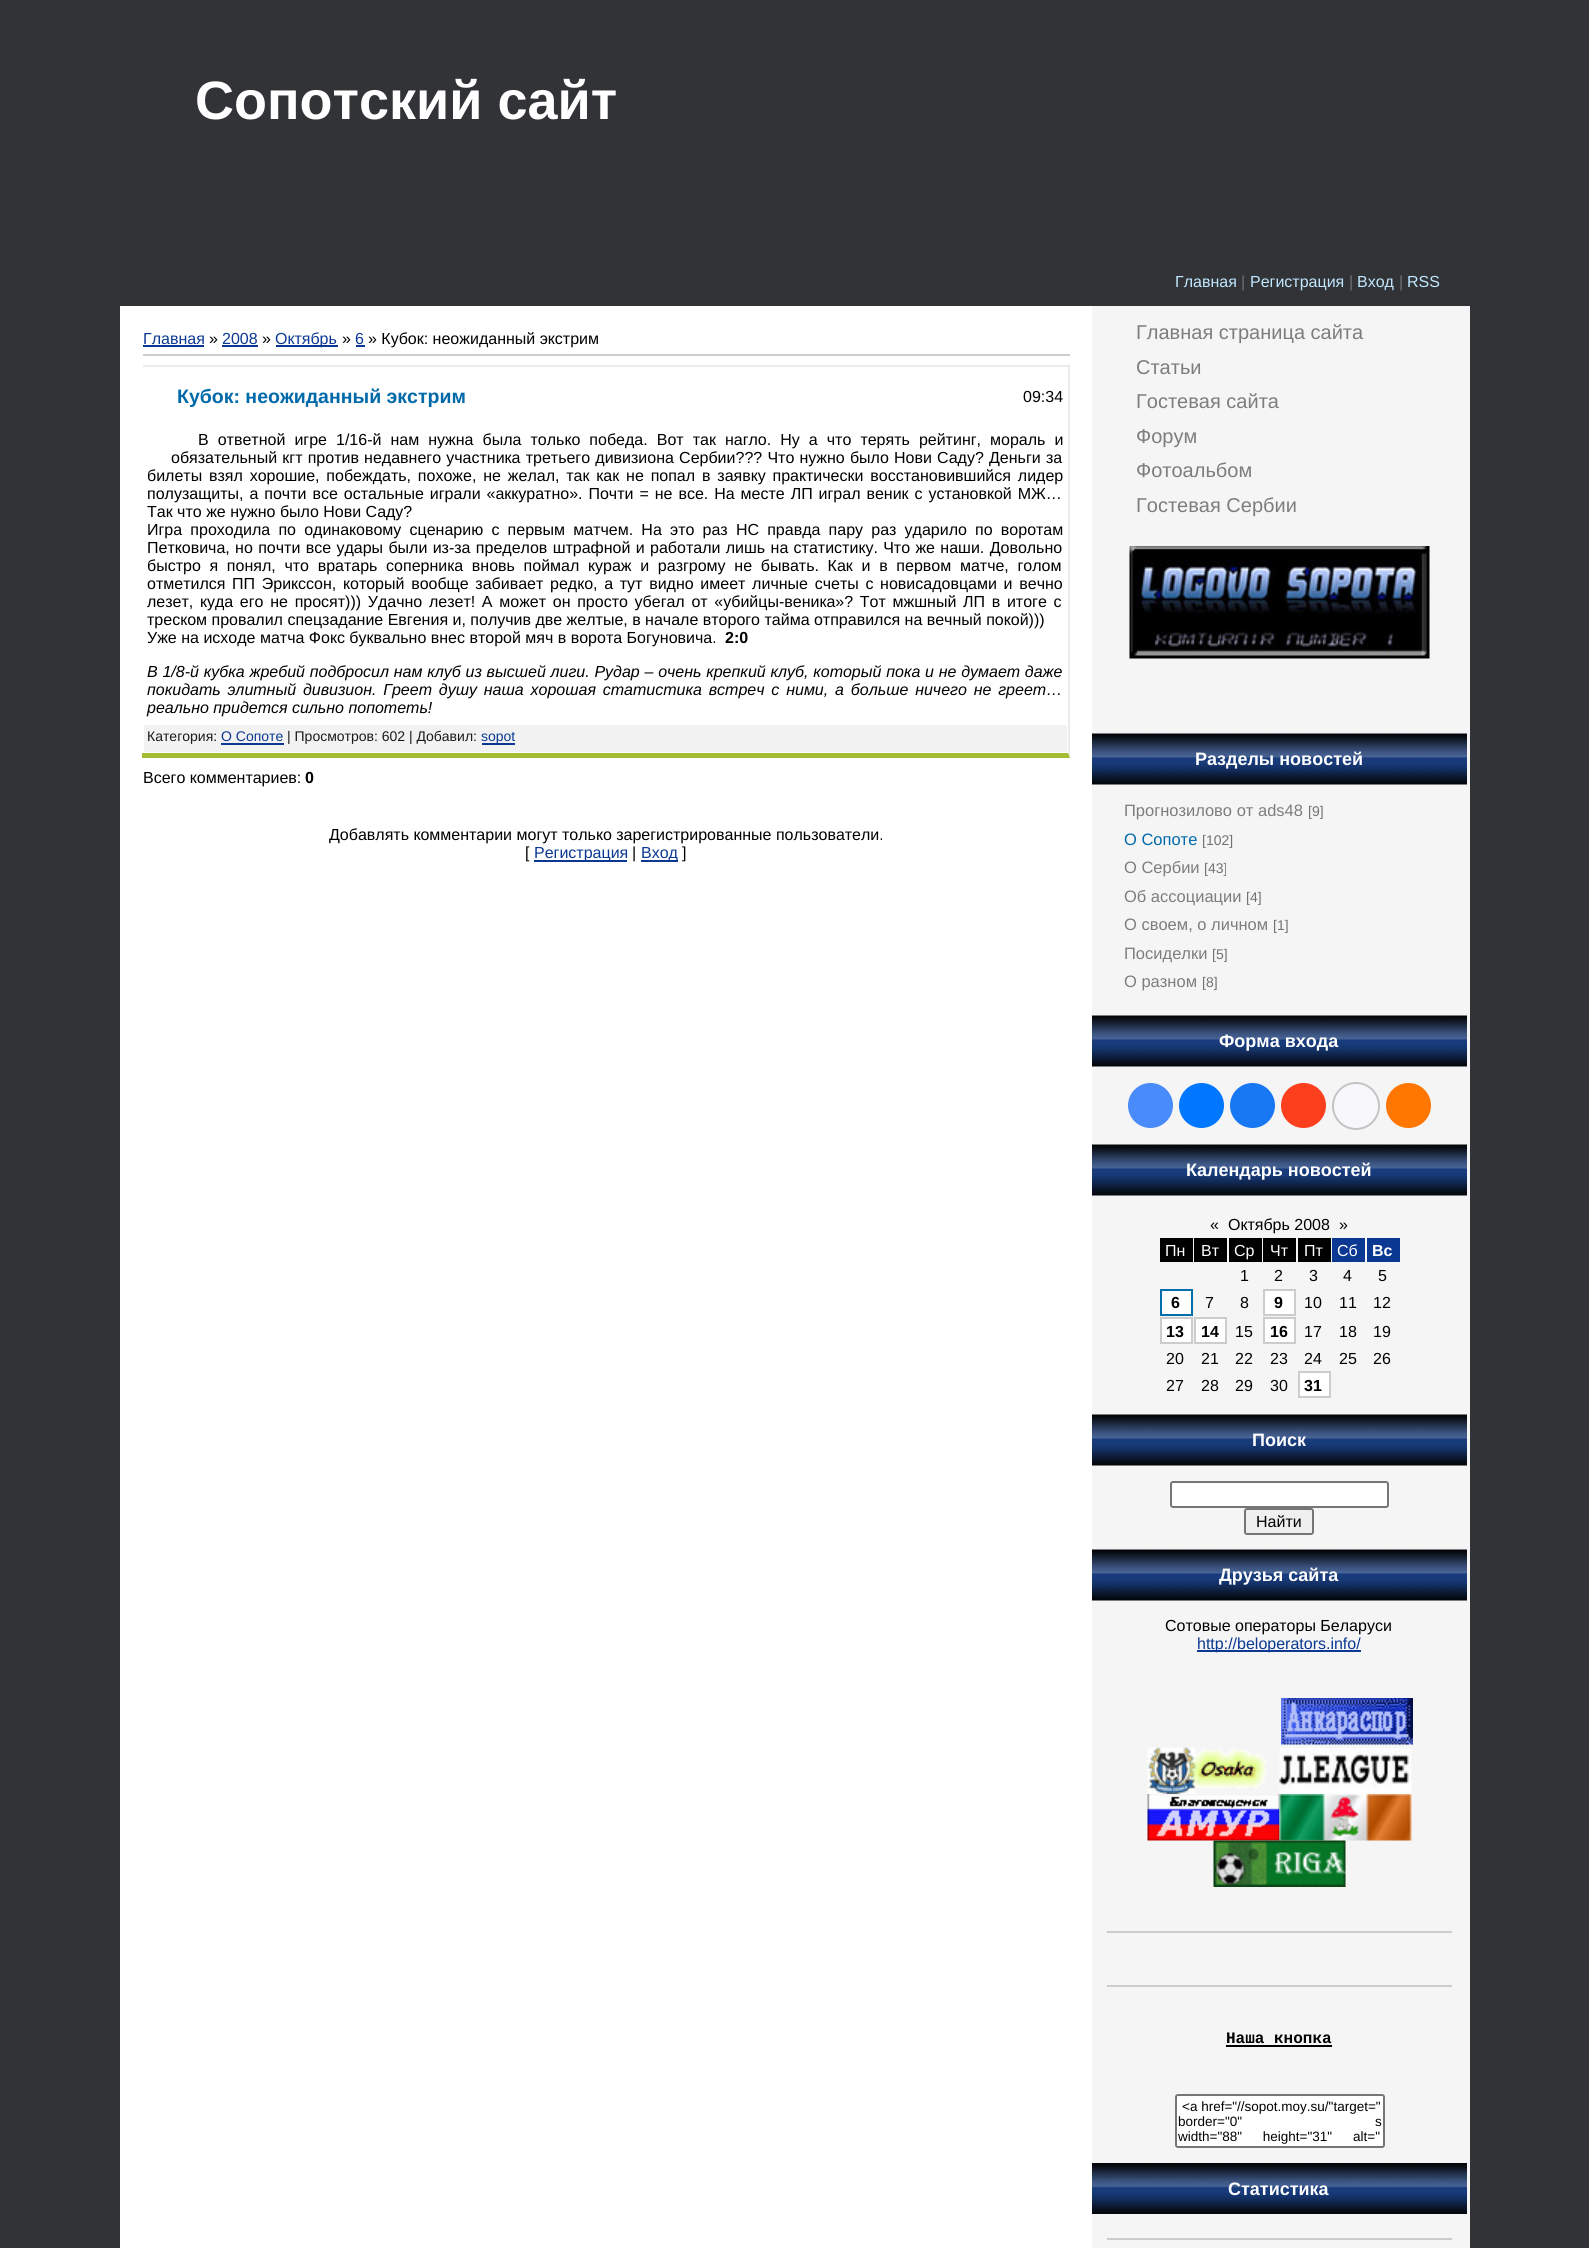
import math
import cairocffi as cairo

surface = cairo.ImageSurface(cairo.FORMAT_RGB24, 1589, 2248)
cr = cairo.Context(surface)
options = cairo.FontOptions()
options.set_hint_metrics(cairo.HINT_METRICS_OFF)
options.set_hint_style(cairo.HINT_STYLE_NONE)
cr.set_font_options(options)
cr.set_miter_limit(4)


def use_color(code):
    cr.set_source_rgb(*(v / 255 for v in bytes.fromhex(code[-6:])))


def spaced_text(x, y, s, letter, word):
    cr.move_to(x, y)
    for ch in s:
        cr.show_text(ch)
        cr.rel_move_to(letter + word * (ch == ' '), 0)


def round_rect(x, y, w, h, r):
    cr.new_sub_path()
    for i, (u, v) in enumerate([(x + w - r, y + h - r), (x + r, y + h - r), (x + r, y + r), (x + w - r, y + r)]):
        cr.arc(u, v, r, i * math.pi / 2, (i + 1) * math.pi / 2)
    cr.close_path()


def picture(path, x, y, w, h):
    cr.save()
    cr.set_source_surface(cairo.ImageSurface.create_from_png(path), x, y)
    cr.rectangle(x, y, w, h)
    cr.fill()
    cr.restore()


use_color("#313337")
cr.paint()
cr.select_font_face("Liberation Sans", cairo.FONT_SLANT_NORMAL, cairo.FONT_WEIGHT_BOLD)
cr.set_font_size(54)
use_color("#ffffff")
cr.move_to(195, 119)
cr.show_text("Сопотский сайт")
cr.select_font_face("Liberation Sans")
cr.set_font_size(16)
use_color("#c1e7ff")
cr.move_to(1175, 287)
cr.show_text("Главная")
use_color("#727272")
cr.move_to(1241, 287)
cr.show_text("|")
use_color("#c1e7ff")
cr.move_to(1250, 287)
cr.show_text("Регистрация")
use_color("#727272")
cr.move_to(1349, 287)
cr.show_text("|")
use_color("#c1e7ff")
cr.move_to(1357, 287)
cr.show_text("Вход")
use_color("#727272")
cr.move_to(1399, 287)
cr.show_text("|")
use_color("#c1e7ff")
cr.move_to(1407, 287)
cr.show_text("RSS")
use_color("#ffffff")
cr.rectangle(120, 306, 972, 1942)
cr.fill()
use_color("#0b3893")
cr.move_to(143, 344)
cr.show_text("Главная")
cr.rectangle(143, 345, 61, 2)
cr.fill()
use_color("#000000")
cr.move_to(209, 344)
cr.show_text("»")
use_color("#0b3893")
cr.move_to(222, 344)
cr.show_text("2008")
cr.rectangle(222, 345, 36, 2)
cr.fill()
use_color("#000000")
cr.move_to(262, 344)
cr.show_text("»")
use_color("#0b3893")
cr.rectangle(276, 345, 62, 2)
cr.fill()
cr.move_to(275, 344)
cr.show_text("Октябрь")
use_color("#000000")
cr.move_to(342, 344)
cr.show_text("»")
use_color("#0b3893")
cr.move_to(355, 344)
cr.show_text("6")
cr.rectangle(356, 345, 9, 2)
cr.fill()
use_color("#000000")
cr.move_to(368, 344)
cr.show_text("» Кубок: неожиданный экстрим")
use_color("#cccccc")
cr.rectangle(143, 354, 927, 2)
cr.fill()
use_color("#ebebeb")
cr.rectangle(143, 365, 927, 2)
cr.fill()
cr.new_path()
cr.move_to(1070, 364)
cr.line_to(1070, 758)
cr.line_to(1068, 753)
cr.line_to(1068, 366)
cr.close_path()
cr.fill()
use_color("#a3bd31")
cr.new_path()
cr.move_to(1070, 758)
cr.line_to(142, 758)
cr.line_to(142, 753)
cr.line_to(1068, 753)
cr.close_path()
cr.fill()
cr.select_font_face("Liberation Sans", cairo.FONT_SLANT_NORMAL, cairo.FONT_WEIGHT_BOLD)
cr.set_font_size(19.5)
use_color("#0069a9")
cr.move_to(177, 403)
cr.show_text("Кубок: неожиданный экстрим")
cr.select_font_face("Liberation Sans")
cr.set_font_size(16)
use_color("#000000")
cr.move_to(1023, 402)
cr.show_text("09:34")
spaced_text(198, 445, "В ответной игре 1/16-й нам нужна была только победа. Вот так нагло. Ну а что терять рейтинг, мораль и", 0, 4.6)
spaced_text(171, 463, "обязательный кгт против недавнего участника третьего дивизиона Сербии??? Что нужно было Нови Саду? Деньги за", 0, 0.75)
spaced_text(147, 481, "билеты взял хорошие, побеждать, похоже, не желал, так как не попал в заявку практически восстановившийся лидер", 0, 2.4)
spaced_text(147, 499, "полузащиты, а почти все остальные играли «аккуратно». Почти = не все. На месте ЛП играл веник с установкой МЖ…", 0, 1.5)
cr.move_to(147, 517)
cr.show_text("Так что же нужно было Нови Саду?")
spaced_text(147, 535, "Игра проходила по одинаковому сценарию с первым матчем. На это раз НС правда пару раз ударило по воротам", 0, 3.75)
spaced_text(147, 553, "Петковича, но почти все удары были из-за пределов штрафной и работали лишь на статистику. Что же наши. Довольно", 0, 0.9)
spaced_text(147, 571, "быстро я понял, что вратарь соперника вновь поймал кураж и разгрому не бывать. Как и в первом матче, голом", 0, 4.25)
spaced_text(147, 589, "отметился ПП Эрикссон, который вообще забивает редко, а тут видно имеет личные счеты с новисадовцами и вечно", 0, 2.25)
spaced_text(147, 607, "лезет, куда его не просят))) Удачно лезет! А может он просто убегал от «убийцы-веника»? Тот мжшный ЛП в итоге с", 0, 2.25)
cr.move_to(147, 625)
cr.show_text("треском провалил спецзадание Евгения и, получив две желтые, в начале второго тайма отправился на вечный покой)))")
cr.move_to(147, 643)
cr.show_text("Уже на исходе матча Фокс буквально внес второй мяч в ворота Богуновича.")
cr.select_font_face("Liberation Sans", cairo.FONT_SLANT_NORMAL, cairo.FONT_WEIGHT_BOLD)
cr.move_to(725, 643)
cr.show_text("2:0")
cr.select_font_face("Liberation Sans", cairo.FONT_SLANT_ITALIC)
spaced_text(147, 677, "В 1/8-й кубка жребий подбросил нам клуб из высшей лиги. Рудар – очень крепкий клуб, который пока и не думает даже", 0, 0.3)
spaced_text(147, 695, "покидать элитный дивизион. Греет душу наша хорошая статистика встреч с ними, а больше ничего не греет…", 0, 2.4)
cr.move_to(147, 713)
cr.show_text("реально придется сильно попотеть!")
use_color("#f2f2f2")
cr.rectangle(144, 725, 923, 27)
cr.fill()
cr.select_font_face("Liberation Sans")
cr.set_font_size(14)
use_color("#1a1a1a")
cr.move_to(147, 741)
cr.show_text("Категория:")
use_color("#0b3893")
cr.move_to(221, 741)
cr.show_text("О Сопоте")
cr.rectangle(221, 743, 63, 2)
cr.fill()
use_color("#1a1a1a")
cr.move_to(287, 741)
cr.show_text("| Просмотров: 602 | Добавил:")
use_color("#0b3893")
cr.rectangle(482, 743, 33, 2)
cr.fill()
cr.move_to(481, 741)
cr.show_text("sopot")
cr.set_font_size(16)
use_color("#000000")
cr.move_to(143, 783)
cr.show_text("Всего комментариев:")
cr.select_font_face("Liberation Sans", cairo.FONT_SLANT_NORMAL, cairo.FONT_WEIGHT_BOLD)
cr.move_to(305, 783)
cr.show_text("0")
cr.select_font_face("Liberation Sans")
cr.move_to(329, 840)
cr.show_text("Добавлять комментарии могут только зарегистрированные пользователи.")
cr.move_to(525, 858)
cr.show_text("[")
use_color("#0b3893")
cr.rectangle(534, 860, 93, 2)
cr.fill()
cr.move_to(534, 858)
cr.show_text("Регистрация")
use_color("#000000")
cr.move_to(632, 858)
cr.show_text("|")
use_color("#0b3893")
cr.rectangle(641, 860, 37, 2)
cr.fill()
cr.move_to(641, 858)
cr.show_text("Вход")
use_color("#000000")
cr.move_to(682, 858)
cr.show_text("]")
use_color("#f5f5f5")
cr.rectangle(1092, 306, 378, 1942)
cr.fill()
cr.set_font_size(20)
use_color("#7d7d7d")
cr.move_to(1136, 339)
cr.show_text("Главная страница сайта")
cr.move_to(1136, 374)
cr.show_text("Статьи")
cr.move_to(1136, 408)
cr.show_text("Гостевая сайта")
cr.move_to(1136, 443)
cr.show_text("Форум")
cr.move_to(1136, 477)
cr.show_text("Фотоальбом")
cr.move_to(1136, 512)
cr.show_text("Гостевая Сербии")
picture("img1.png", 1129, 546, 301, 113)
picture("img2.png", 1092, 733, 375, 52)
cr.select_font_face("Liberation Sans", cairo.FONT_SLANT_NORMAL, cairo.FONT_WEIGHT_BOLD)
cr.set_font_size(18)
use_color("#ffffff")
cr.move_to(1195, 765)
cr.show_text("Разделы новостей")
cr.select_font_face("Liberation Sans")
cr.set_font_size(16.5)
use_color("#7d7d7d")
cr.move_to(1124, 816)
cr.show_text("Прогнозилово от ads48")
cr.set_font_size(14)
use_color("#727272")
cr.move_to(1308, 816)
cr.show_text("[9]")
cr.set_font_size(16.5)
use_color("#0069a9")
cr.move_to(1124, 845)
cr.show_text("О Сопоте")
cr.set_font_size(14)
use_color("#727272")
cr.move_to(1202, 845)
cr.show_text("[102]")
cr.set_font_size(16.5)
use_color("#7d7d7d")
cr.move_to(1124, 873)
cr.show_text("О Сербии")
cr.set_font_size(14)
use_color("#727272")
cr.move_to(1204, 873)
cr.show_text("[43]")
cr.set_font_size(16.5)
use_color("#7d7d7d")
cr.move_to(1124, 902)
cr.show_text("Об ассоциации")
cr.set_font_size(14)
use_color("#727272")
cr.move_to(1246, 902)
cr.show_text("[4]")
cr.set_font_size(16.5)
use_color("#7d7d7d")
cr.move_to(1124, 930)
cr.show_text("О своем, о личном")
cr.set_font_size(14)
use_color("#727272")
cr.move_to(1273, 930)
cr.show_text("[1]")
cr.set_font_size(16.5)
use_color("#7d7d7d")
cr.move_to(1124, 959)
cr.show_text("Посиделки")
cr.set_font_size(14)
use_color("#727272")
cr.move_to(1212, 959)
cr.show_text("[5]")
cr.set_font_size(16.5)
use_color("#7d7d7d")
cr.move_to(1124, 987)
cr.show_text("О разном")
cr.set_font_size(14)
use_color("#727272")
cr.move_to(1202, 987)
cr.show_text("[8]")
picture("img3.png", 1092, 1015, 375, 52)
cr.select_font_face("Liberation Sans", cairo.FONT_SLANT_NORMAL, cairo.FONT_WEIGHT_BOLD)
cr.set_font_size(18)
use_color("#ffffff")
cr.move_to(1219, 1047)
cr.show_text("Форма входа")
use_color("#498bfa")
cr.new_path()
cr.arc(1150.5, 1105.5, 22.5, 0, 2 * math.pi)
cr.fill()
use_color("#0077ff")
cr.arc(1201.5, 1105.5, 22.5, 0, 2 * math.pi)
cr.fill()
use_color("#1877f2")
cr.arc(1252.5, 1105.5, 22.5, 0, 2 * math.pi)
cr.fill()
use_color("#fc3f1d")
cr.arc(1303.5, 1105.5, 22.5, 0, 2 * math.pi)
cr.fill()
use_color("#f8f8fc")
cr.arc(1356, 1106, 23, 0, 2 * math.pi)
cr.fill_preserve()
use_color("#c4c4c4")
cr.stroke()
use_color("#ff7700")
cr.arc(1408.5, 1105.5, 22.5, 0, 2 * math.pi)
cr.fill()
picture("img4.png", 1092, 1144, 375, 52)
use_color("#ffffff")
cr.move_to(1186, 1176)
cr.show_text("Календарь новостей")
cr.select_font_face("Liberation Sans")
cr.set_font_size(16)
use_color("#000000")
cr.move_to(1210, 1230)
cr.show_text("«")
cr.move_to(1228, 1230)
cr.show_text("Октябрь 2008")
cr.move_to(1339, 1230)
cr.show_text("»")
cr.rectangle(1160, 1238, 33, 24)
cr.fill()
use_color("#ffffff")
cr.move_to(1165, 1256)
cr.show_text("Пн")
use_color("#000000")
cr.rectangle(1194, 1238, 33, 24)
cr.fill()
use_color("#ffffff")
cr.move_to(1201, 1256)
cr.show_text("Вт")
use_color("#000000")
cr.rectangle(1229, 1238, 33, 24)
cr.fill()
use_color("#ffffff")
cr.move_to(1234, 1256)
cr.show_text("Ср")
use_color("#000000")
cr.rectangle(1263, 1238, 33, 24)
cr.fill()
use_color("#ffffff")
cr.move_to(1270, 1256)
cr.show_text("Чт")
use_color("#000000")
cr.rectangle(1298, 1238, 33, 24)
cr.fill()
use_color("#ffffff")
cr.move_to(1304, 1256)
cr.show_text("Пт")
use_color("#0b3893")
cr.rectangle(1332, 1238, 33, 24)
cr.fill()
use_color("#ffffff")
cr.move_to(1337, 1256)
cr.show_text("Сб")
use_color("#0b3893")
cr.rectangle(1367, 1238, 33, 24)
cr.fill()
cr.select_font_face("Liberation Sans", cairo.FONT_SLANT_NORMAL, cairo.FONT_WEIGHT_BOLD)
use_color("#ffffff")
cr.move_to(1372, 1256)
cr.show_text("Вс")
cr.select_font_face("Liberation Sans")
use_color("#000000")
cr.move_to(1240, 1281)
cr.show_text("1")
cr.move_to(1274, 1281)
cr.show_text("2")
cr.move_to(1309, 1281)
cr.show_text("3")
cr.move_to(1343, 1281)
cr.show_text("4")
cr.move_to(1378, 1281)
cr.show_text("5")
use_color("#ffffff")
cr.rectangle(1161, 1290, 31, 25)
cr.fill_preserve()
use_color("#016ead")
cr.stroke()
cr.select_font_face("Liberation Sans", cairo.FONT_SLANT_NORMAL, cairo.FONT_WEIGHT_BOLD)
use_color("#000000")
cr.move_to(1171, 1308)
cr.show_text("6")
cr.select_font_face("Liberation Sans")
cr.move_to(1205, 1308)
cr.show_text("7")
cr.move_to(1240, 1308)
cr.show_text("8")
use_color("#ffffff")
cr.rectangle(1264, 1290, 31, 25)
cr.fill_preserve()
use_color("#cccccc")
cr.stroke()
cr.select_font_face("Liberation Sans", cairo.FONT_SLANT_NORMAL, cairo.FONT_WEIGHT_BOLD)
use_color("#000000")
cr.move_to(1274, 1308)
cr.show_text("9")
cr.select_font_face("Liberation Sans")
cr.move_to(1304, 1308)
cr.show_text("10")
cr.move_to(1339, 1308)
cr.show_text("11")
cr.move_to(1373, 1308)
cr.show_text("12")
use_color("#ffffff")
cr.rectangle(1161, 1318, 31, 25)
cr.fill_preserve()
use_color("#cccccc")
cr.stroke()
cr.select_font_face("Liberation Sans", cairo.FONT_SLANT_NORMAL, cairo.FONT_WEIGHT_BOLD)
use_color("#000000")
cr.move_to(1166, 1337)
cr.show_text("13")
use_color("#ffffff")
cr.rectangle(1195, 1318, 31, 25)
cr.fill_preserve()
use_color("#cccccc")
cr.stroke()
use_color("#000000")
cr.move_to(1201, 1337)
cr.show_text("14")
cr.select_font_face("Liberation Sans")
cr.move_to(1235, 1337)
cr.show_text("15")
use_color("#ffffff")
cr.rectangle(1264, 1318, 31, 25)
cr.fill_preserve()
use_color("#cccccc")
cr.stroke()
cr.select_font_face("Liberation Sans", cairo.FONT_SLANT_NORMAL, cairo.FONT_WEIGHT_BOLD)
use_color("#000000")
cr.move_to(1270, 1337)
cr.show_text("16")
cr.select_font_face("Liberation Sans")
cr.move_to(1304, 1337)
cr.show_text("17")
cr.move_to(1339, 1337)
cr.show_text("18")
cr.move_to(1373, 1337)
cr.show_text("19")
cr.move_to(1166, 1364)
cr.show_text("20")
cr.move_to(1201, 1364)
cr.show_text("21")
cr.move_to(1235, 1364)
cr.show_text("22")
cr.move_to(1270, 1364)
cr.show_text("23")
cr.move_to(1304, 1364)
cr.show_text("24")
cr.move_to(1339, 1364)
cr.show_text("25")
cr.move_to(1373, 1364)
cr.show_text("26")
cr.move_to(1166, 1391)
cr.show_text("27")
cr.move_to(1201, 1391)
cr.show_text("28")
cr.move_to(1235, 1391)
cr.show_text("29")
cr.move_to(1270, 1391)
cr.show_text("30")
use_color("#ffffff")
cr.rectangle(1299, 1372, 31, 25)
cr.fill_preserve()
use_color("#cccccc")
cr.stroke()
cr.select_font_face("Liberation Sans", cairo.FONT_SLANT_NORMAL, cairo.FONT_WEIGHT_BOLD)
use_color("#000000")
cr.move_to(1304, 1391)
cr.show_text("31")
picture("img5.png", 1092, 1414, 375, 52)
cr.set_font_size(18)
use_color("#ffffff")
cr.move_to(1252, 1446)
cr.show_text("Поиск")
round_rect(1171, 1482, 217, 25, 2)
cr.fill_preserve()
use_color("#767676")
cr.stroke()
use_color("#efefef")
round_rect(1245, 1509, 68, 25, 2)
cr.fill_preserve()
use_color("#767676")
cr.stroke()
cr.select_font_face("Liberation Sans")
cr.set_font_size(16)
use_color("#000000")
cr.move_to(1256, 1527)
cr.show_text("Найти")
picture("img6.png", 1092, 1549, 375, 52)
cr.select_font_face("Liberation Sans", cairo.FONT_SLANT_NORMAL, cairo.FONT_WEIGHT_BOLD)
cr.set_font_size(18)
use_color("#ffffff")
cr.move_to(1219, 1581)
cr.show_text("Друзья сайта")
cr.select_font_face("Liberation Sans")
cr.set_font_size(16)
use_color("#000000")
cr.move_to(1165, 1631)
cr.show_text("Сотовые операторы Беларуси")
use_color("#0b3893")
cr.rectangle(1197, 1650, 164, 2)
cr.fill()
cr.move_to(1197, 1649)
cr.show_text("http://beloperators.info/")
picture("img7.png", 1281, 1698, 132, 47)
picture("img8.png", 1147, 1747, 119, 47)
picture("img9.png", 1279, 1747, 133, 47)
picture("img10.png", 1147, 1794, 133, 47)
picture("img11.png", 1279, 1794, 133, 47)
picture("img12.png", 1213, 1840, 133, 47)
use_color("#cccccc")
cr.rectangle(1107, 1931, 345, 2)
cr.fill()
cr.rectangle(1107, 1985, 345, 2)
cr.fill()
cr.select_font_face("Liberation Mono", cairo.FONT_SLANT_NORMAL, cairo.FONT_WEIGHT_BOLD)
use_color("#000000")
cr.move_to(1226, 2043)
cr.show_text("Наша кнопка")
cr.rectangle(1226, 2045, 106, 2)
cr.fill()
use_color("#ffffff")
round_rect(1176, 2095, 208, 52, 2)
cr.fill_preserve()
use_color("#767676")
cr.stroke()
cr.select_font_face("Liberation Sans")
cr.set_font_size(13.5)
use_color("#000000")
cr.move_to(1182, 2111)
cr.show_text("<a href=\"//sopot.moy.su/\"target=\"")
cr.move_to(1178, 2126)
cr.show_text("border=\"0\"")
cr.move_to(1375, 2126)
cr.show_text("s")
spaced_text(1178, 2141, "width=\"88\" height=\"31\"", 0, 17)
cr.move_to(1353, 2141)
cr.show_text("alt=\"")
picture("img13.png", 1092, 2163, 375, 51)
cr.select_font_face("Liberation Sans", cairo.FONT_SLANT_NORMAL, cairo.FONT_WEIGHT_BOLD)
cr.set_font_size(18)
use_color("#ffffff")
cr.move_to(1228, 2195)
cr.show_text("Статистика")
use_color("#cccccc")
cr.rectangle(1107, 2238, 345, 2)
cr.fill()
surface.write_to_png("result.png")
